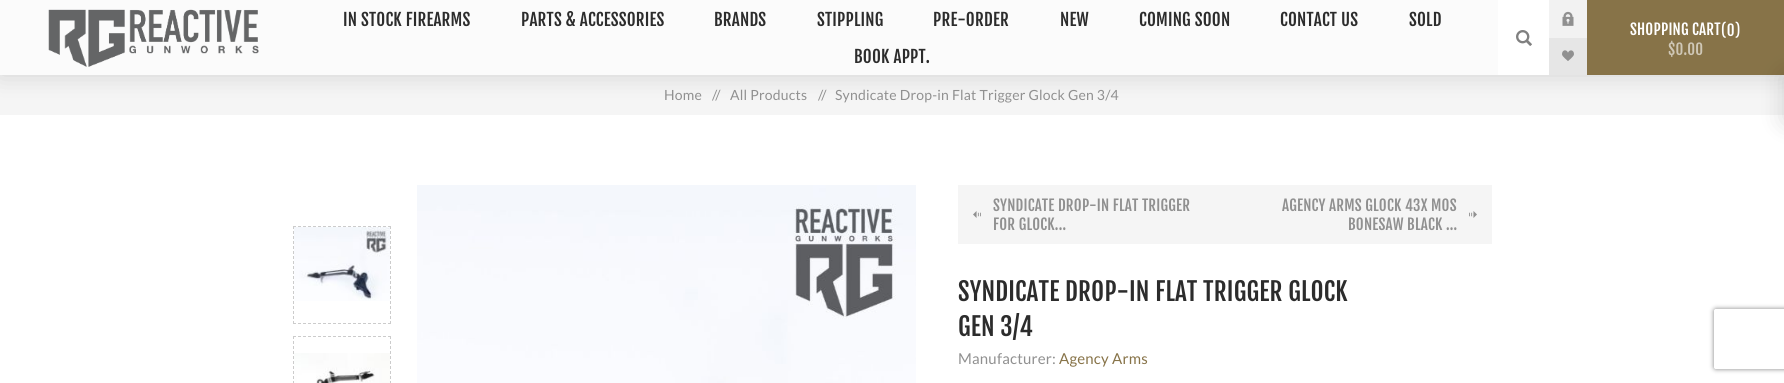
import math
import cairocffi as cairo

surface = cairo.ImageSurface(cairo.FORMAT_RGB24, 1784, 383)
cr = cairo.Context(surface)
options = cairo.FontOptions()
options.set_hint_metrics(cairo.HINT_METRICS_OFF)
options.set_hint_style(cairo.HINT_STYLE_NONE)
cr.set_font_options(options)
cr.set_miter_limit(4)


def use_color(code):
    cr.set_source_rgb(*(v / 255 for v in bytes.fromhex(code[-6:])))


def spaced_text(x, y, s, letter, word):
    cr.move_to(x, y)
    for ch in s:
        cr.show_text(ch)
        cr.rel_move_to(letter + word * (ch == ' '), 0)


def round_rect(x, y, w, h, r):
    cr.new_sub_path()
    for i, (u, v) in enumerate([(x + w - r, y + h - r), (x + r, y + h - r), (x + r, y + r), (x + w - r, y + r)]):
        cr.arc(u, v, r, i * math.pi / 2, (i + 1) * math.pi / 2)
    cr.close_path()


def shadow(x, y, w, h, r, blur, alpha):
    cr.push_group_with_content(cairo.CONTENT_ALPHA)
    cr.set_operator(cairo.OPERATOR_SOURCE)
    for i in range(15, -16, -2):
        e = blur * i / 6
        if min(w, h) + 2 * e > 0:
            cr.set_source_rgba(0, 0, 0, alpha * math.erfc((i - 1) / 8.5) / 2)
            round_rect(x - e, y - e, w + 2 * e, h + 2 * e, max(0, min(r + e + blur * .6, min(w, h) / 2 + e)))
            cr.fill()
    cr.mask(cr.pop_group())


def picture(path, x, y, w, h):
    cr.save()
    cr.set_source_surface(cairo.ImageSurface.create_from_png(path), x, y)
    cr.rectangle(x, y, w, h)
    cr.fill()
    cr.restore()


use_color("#ffffff")
cr.paint()
use_color("#f5f5f5")
cr.rectangle(0, 75, 1784, 40)
cr.fill()
use_color("#000000")
shadow(0, 0, 1784, 75, 0, 12.5, 0.15)
use_color("#fbfbfb")
cr.rectangle(0, 0, 1498, 75)
cr.fill()
picture("img1.png", 48, 9, 211, 58)
cr.select_font_face("Fjalla One")
cr.set_font_size(17)
use_color("#2c2c2c")
spaced_text(343, 26, "IN STOCK FIREARMS", 0.2, 0)
spaced_text(521, 26, "PARTS & ACCESSORIES", 0.2, 0)
spaced_text(714, 26, "BRANDS", 0.2, 0)
spaced_text(817, 26, "STIPPLING", 0.2, 0)
spaced_text(933, 26, "PRE-ORDER", 0.2, 0)
spaced_text(1060, 26, "NEW", 0.2, 0)
spaced_text(1139, 26, "COMING SOON", 0.2, 0)
spaced_text(1280, 26, "CONTACT US", 0.2, 0)
spaced_text(1409, 26, "SOLD", 0.2, 0)
spaced_text(854, 63, "BOOK APPT.", 0.2, 0)
use_color("#ffffff")
cr.rectangle(1498, 0, 51, 75)
cr.fill()
picture("img2.png", 1516, 30, 16, 16)
use_color("#f2f2f2")
cr.rectangle(1549, 0, 38, 38)
cr.fill()
picture("img3.png", 1562, 11, 12, 15)
use_color("#e6e6e6")
cr.rectangle(1549, 38, 38, 37)
cr.fill()
picture("img4.png", 1562, 50, 12, 11)
use_color("#877348")
cr.rectangle(1587, 0, 197, 75)
cr.fill()
cr.set_font_size(15)
use_color("#ffffff")
spaced_text(1630, 35, "SHOPPING CART", 0.2, 0)
spaced_text(1721, 36, "(0)", 0.2, 0)
use_color("#cfc7b6")
spaced_text(1668, 55, "$0.00", 0.2, 0)
use_color("#000000")
shadow(1784, 75, 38, 47, 0, 12.5, 0.15)
cr.select_font_face("Lato")
cr.set_font_size(14)
use_color("#909090")
spaced_text(664, 100, "Home", 0.2, 0)
spaced_text(712, 100, "//", -2, 0)
spaced_text(730, 100, "All Products", 0.2, 0)
spaced_text(818, 100, "//", -2, 0)
spaced_text(835, 100, "Syndicate Drop-in Flat Trigger Glock Gen 3/4", 0.2, 0)
cr.new_path()
cr.move_to(293, 226.5)
cr.line_to(391, 226.5)
use_color("#cccccc")
cr.set_line_width(1)
cr.set_dash([3, 2])
cr.stroke()
cr.new_path()
cr.move_to(390.5, 226)
cr.line_to(390.5, 324)
cr.stroke()
cr.new_path()
cr.move_to(293, 323.5)
cr.line_to(391, 323.5)
cr.stroke()
cr.new_path()
cr.move_to(293.5, 226)
cr.line_to(293.5, 324)
cr.stroke()
picture("img5.png", 294, 227, 96, 74)
cr.new_path()
cr.move_to(293, 336.5)
cr.line_to(391, 336.5)
cr.stroke()
cr.new_path()
cr.move_to(390.5, 336)
cr.line_to(390.5, 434)
cr.stroke()
cr.new_path()
cr.move_to(293.5, 336)
cr.line_to(293.5, 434)
cr.stroke()
picture("img6.png", 294, 353, 96, 30)
picture("img7.png", 417, 185, 499, 198)
use_color("#f5f5f5")
cr.rectangle(958, 185, 534, 59)
cr.fill()
cr.select_font_face("Fjalla One")
cr.set_font_size(15)
use_color("#909090")
spaced_text(993, 211, "SYNDICATE DROP-IN FLAT TRIGGER", 0.2, 0)
picture("img8.png", 973, 211, 8, 7)
spaced_text(993, 230, "FOR GLOCK...", 0.2, 0)
spaced_text(1282, 211, "AGENCY ARMS GLOCK 43X MOS", 0.2, 0)
picture("img9.png", 1469, 211, 8, 7)
spaced_text(1348, 230, "BONESAW BLACK ...", 0.2, 0)
cr.set_font_size(25)
use_color("#2c2c2c")
spaced_text(958, 301, "SYNDICATE DROP-IN FLAT TRIGGER GLOCK", 0.2, 0)
spaced_text(958, 336, "GEN 3/4", 0.2, 0)
cr.select_font_face("Lato")
cr.set_font_size(15)
use_color("#909090")
spaced_text(958, 364, "Manufacturer:", 0.2, 0)
use_color("#877348")
spaced_text(1059, 364, "Agency Arms", 0.2, 0)
cr.save()
cr.set_fill_rule(cairo.FILL_RULE_EVEN_ODD)
cr.new_path()
cr.move_to(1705, 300)
cr.line_to(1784, 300)
cr.line_to(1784, 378)
cr.line_to(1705, 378)
cr.close_path()
cr.move_to(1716, 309)
cr.line_to(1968, 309)
cr.curve_to(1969, 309, 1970, 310, 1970, 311)
cr.line_to(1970, 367)
cr.curve_to(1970, 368, 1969, 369, 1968, 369)
cr.line_to(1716, 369)
cr.curve_to(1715, 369, 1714, 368, 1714, 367)
cr.line_to(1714, 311)
cr.curve_to(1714, 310, 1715, 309, 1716, 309)
cr.close_path()
cr.clip()
use_color("#808080")
shadow(1714, 309, 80, 60, 2, 2.5, 1)
cr.restore()
surface.write_to_png("result.png")
